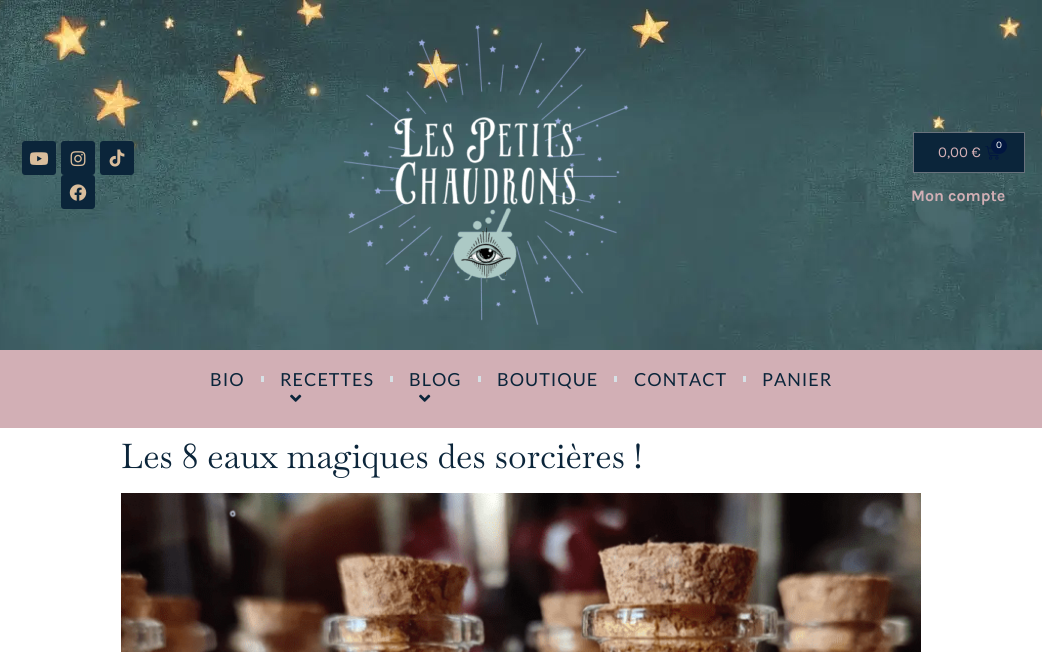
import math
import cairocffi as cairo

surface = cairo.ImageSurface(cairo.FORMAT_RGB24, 1042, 652)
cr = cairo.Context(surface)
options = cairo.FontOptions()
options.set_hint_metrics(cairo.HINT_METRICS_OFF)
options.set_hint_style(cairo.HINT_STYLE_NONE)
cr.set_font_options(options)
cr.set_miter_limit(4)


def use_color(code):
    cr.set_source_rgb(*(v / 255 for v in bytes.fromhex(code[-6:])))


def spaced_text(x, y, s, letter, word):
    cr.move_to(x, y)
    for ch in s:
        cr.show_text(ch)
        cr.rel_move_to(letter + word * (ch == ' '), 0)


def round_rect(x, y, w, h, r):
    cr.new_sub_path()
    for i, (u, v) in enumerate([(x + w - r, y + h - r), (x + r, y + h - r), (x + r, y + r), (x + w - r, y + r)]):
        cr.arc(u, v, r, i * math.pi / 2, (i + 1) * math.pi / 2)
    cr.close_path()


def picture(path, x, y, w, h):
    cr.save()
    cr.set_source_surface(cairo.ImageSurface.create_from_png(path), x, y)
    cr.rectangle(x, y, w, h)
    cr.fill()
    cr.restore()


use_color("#ffffff")
cr.paint()
picture("img1.png", 0, 0, 1042, 350)
use_color("#0b253a")
round_rect(22, 141, 34, 34, 3)
cr.fill()
picture("img2.png", 29, 152, 20, 13)
round_rect(61, 141, 34, 34, 3)
cr.fill()
picture("img3.png", 70, 151, 16, 16)
round_rect(100, 141, 34, 34, 3)
cr.fill()
picture("img4.png", 109, 149, 16, 18)
round_rect(61, 175, 34, 34, 3)
cr.fill()
picture("img5.png", 69, 184, 18, 17)
picture("img6.png", 343, 25, 286, 300)
cr.rectangle(913.5, 132.5, 111, 40)
cr.fill_preserve()
use_color("#69727d")
cr.set_line_width(1)
cr.stroke()
picture("img7.png", 985, 146, 14, 14)
use_color("#011640")
cr.arc(999, 146, 8, 0, 2 * math.pi)
cr.fill()
cr.select_font_face("Karla")
cr.set_font_size(10)
use_color("#ffffff")
cr.move_to(996, 148)
cr.show_text("0")
cr.set_font_size(15)
use_color("#d2afb5")
cr.move_to(938, 157)
cr.show_text("0,00 €")
cr.select_font_face("Karla", cairo.FONT_SLANT_NORMAL, cairo.FONT_WEIGHT_BOLD)
cr.set_font_size(16)
cr.move_to(911, 201)
cr.show_text("Mon compte")
cr.rectangle(0, 350, 1042, 78)
cr.fill()
cr.select_font_face("Lato")
cr.set_font_size(18)
use_color("#0b253a")
spaced_text(210, 386, "BIO", 1, 0)
use_color("#d7e1e6")
cr.rectangle(261, 376, 3, 6)
cr.fill()
use_color("#0b253a")
spaced_text(280, 386, "RECETTES", 1, 0)
picture("img8.png", 290, 394, 12, 8)
use_color("#d7e1e6")
cr.rectangle(390, 376, 3, 6)
cr.fill()
use_color("#0b253a")
spaced_text(409, 386, "BLOG", 1, 0)
picture("img8.png", 419, 394, 12, 8)
use_color("#d7e1e6")
cr.rectangle(478, 376, 3, 6)
cr.fill()
use_color("#0b253a")
spaced_text(497, 386, "BOUTIQUE", 1, 0)
use_color("#d7e1e6")
cr.rectangle(614, 376, 3, 6)
cr.fill()
use_color("#0b253a")
spaced_text(634, 386, "CONTACT", 1, 0)
use_color("#d7e1e6")
cr.rectangle(743, 376, 3, 6)
cr.fill()
use_color("#0b253a")
spaced_text(762, 386, "PANIER", 1, 0)
cr.select_font_face("Baskervville")
cr.set_font_size(34)
cr.move_to(121, 468)
cr.show_text("Les 8 eaux magiques des sorcières !")
picture("img9.png", 121, 493, 800, 159)
surface.write_to_png("result.png")
